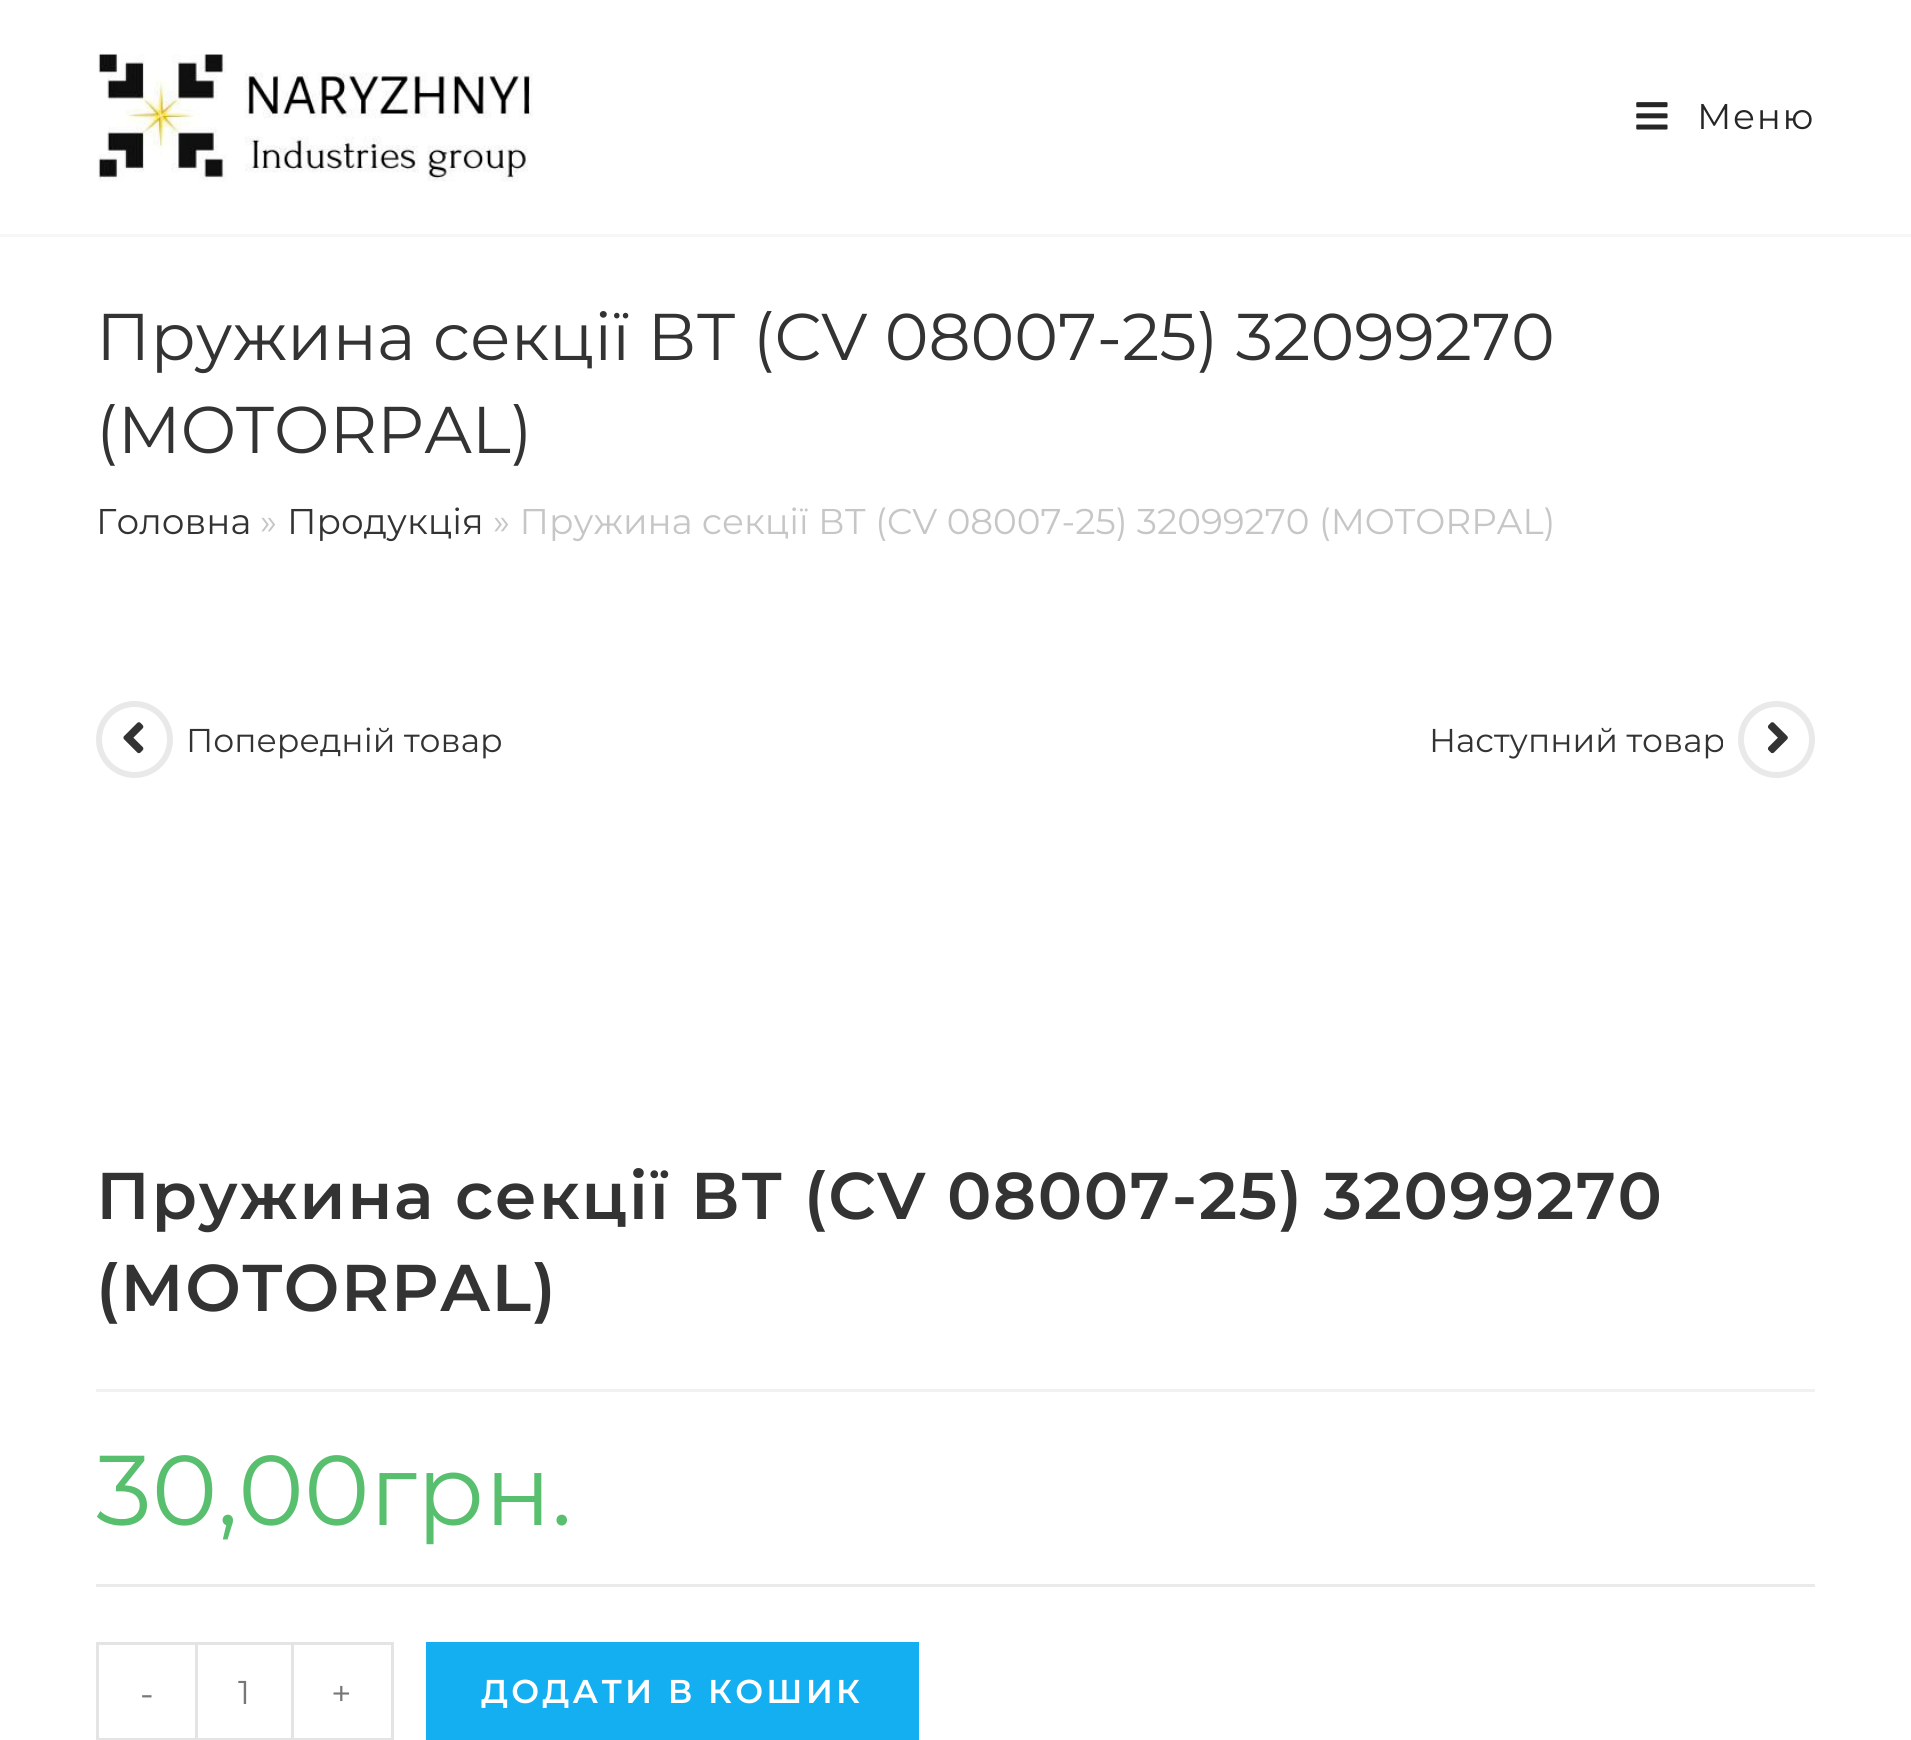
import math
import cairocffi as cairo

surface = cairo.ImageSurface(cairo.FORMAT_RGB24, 1911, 1740)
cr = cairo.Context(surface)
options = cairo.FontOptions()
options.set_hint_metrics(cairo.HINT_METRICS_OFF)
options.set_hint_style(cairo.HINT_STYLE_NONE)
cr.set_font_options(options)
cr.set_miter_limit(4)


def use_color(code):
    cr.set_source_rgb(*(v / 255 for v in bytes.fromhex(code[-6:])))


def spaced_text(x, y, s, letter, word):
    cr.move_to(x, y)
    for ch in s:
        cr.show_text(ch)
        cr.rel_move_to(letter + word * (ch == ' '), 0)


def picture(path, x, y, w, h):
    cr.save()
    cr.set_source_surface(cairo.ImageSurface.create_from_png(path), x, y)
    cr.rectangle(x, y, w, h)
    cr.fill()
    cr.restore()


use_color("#ffffff")
cr.paint()
use_color("#f6f6f6")
cr.rectangle(0, 234, 1911, 3)
cr.fill()
picture("img1.png", 98, 53, 435, 129)
picture("img2.png", 1636, 102, 32, 28)
cr.select_font_face("Montserrat")
cr.set_font_size(35.75)
use_color("#262626")
spaced_text(1697, 129, "Меню", 1.65, 0)
cr.set_font_size(66)
use_color("#333333")
cr.move_to(96, 360)
cr.show_text("Пружина секції ВТ (CV 08007-25) 32099270")
cr.move_to(96, 453)
cr.show_text("(MOTORPAL)")
cr.set_font_size(35.75)
cr.move_to(96, 534)
cr.show_text("Головна")
use_color("#c6c6c6")
cr.move_to(260, 534)
cr.show_text("»")
use_color("#333333")
cr.move_to(287, 534)
cr.show_text("Продукція")
use_color("#c6c6c6")
cr.move_to(493, 534)
cr.show_text("» Пружина секції ВТ (CV 08007-25) 32099270 (MOTORPAL)")
cr.new_path()
cr.arc(134.5, 739.5, 35.5, 0, 2 * math.pi)
use_color("#e9e9e9")
cr.set_line_width(6)
cr.stroke()
picture("img3.png", 123, 722, 21, 32)
cr.set_font_size(33)
use_color("#333333")
cr.move_to(186, 752)
cr.show_text("Попередній товар")
cr.move_to(1429, 752)
cr.show_text("Наступний товар")
cr.new_path()
cr.arc(1776.5, 739.5, 35.5, 0, 2 * math.pi)
use_color("#e9e9e9")
cr.stroke()
picture("img4.png", 1767, 722, 21, 32)
use_color("#f1f1f1")
cr.rectangle(96, 1389, 1719, 3)
cr.fill()
cr.select_font_face("Montserrat SemiBold")
cr.set_font_size(66)
use_color("#333333")
spaced_text(96, 1219, "Пружина секції ВТ (CV 08007-25) 32099270", 1.65, 0)
spaced_text(96, 1311, "(MOTORPAL)", 1.65, 0)
cr.select_font_face("Montserrat")
cr.set_font_size(99)
use_color("#57bf6d")
cr.move_to(96, 1525)
cr.show_text("30,00грн.")
use_color("#eaeaea")
cr.rectangle(96, 1584, 1719, 3)
cr.fill()
use_color("#e4e4e4")
cr.rectangle(96, 1642, 99, 3)
cr.fill()
cr.rectangle(96, 1738, 99, 2)
cr.fill()
cr.rectangle(96, 1642, 3, 98)
cr.fill()
cr.set_font_size(35.75)
use_color("#777777")
cr.move_to(140, 1706)
cr.show_text("-")
cr.rectangle(196.5, 1643.5, 96, 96)
use_color("#e4e4e4")
cr.set_line_width(3)
cr.stroke()
cr.set_font_size(33)
use_color("#777777")
cr.move_to(238, 1704)
cr.show_text("1")
use_color("#e4e4e4")
cr.rectangle(294, 1642, 99, 3)
cr.fill()
cr.rectangle(391, 1642, 3, 98)
cr.fill()
cr.rectangle(294, 1738, 99, 2)
cr.fill()
cr.set_font_size(35.75)
use_color("#777777")
cr.move_to(331, 1706)
cr.show_text("+")
use_color("#13aff0")
cr.rectangle(426, 1642, 493, 98)
cr.fill()
cr.select_font_face("Montserrat SemiBold")
cr.set_font_size(33)
use_color("#ffffff")
spaced_text(481, 1703, "ДОДАТИ В КОШИК", 3.25, 0)
surface.write_to_png("result.png")
